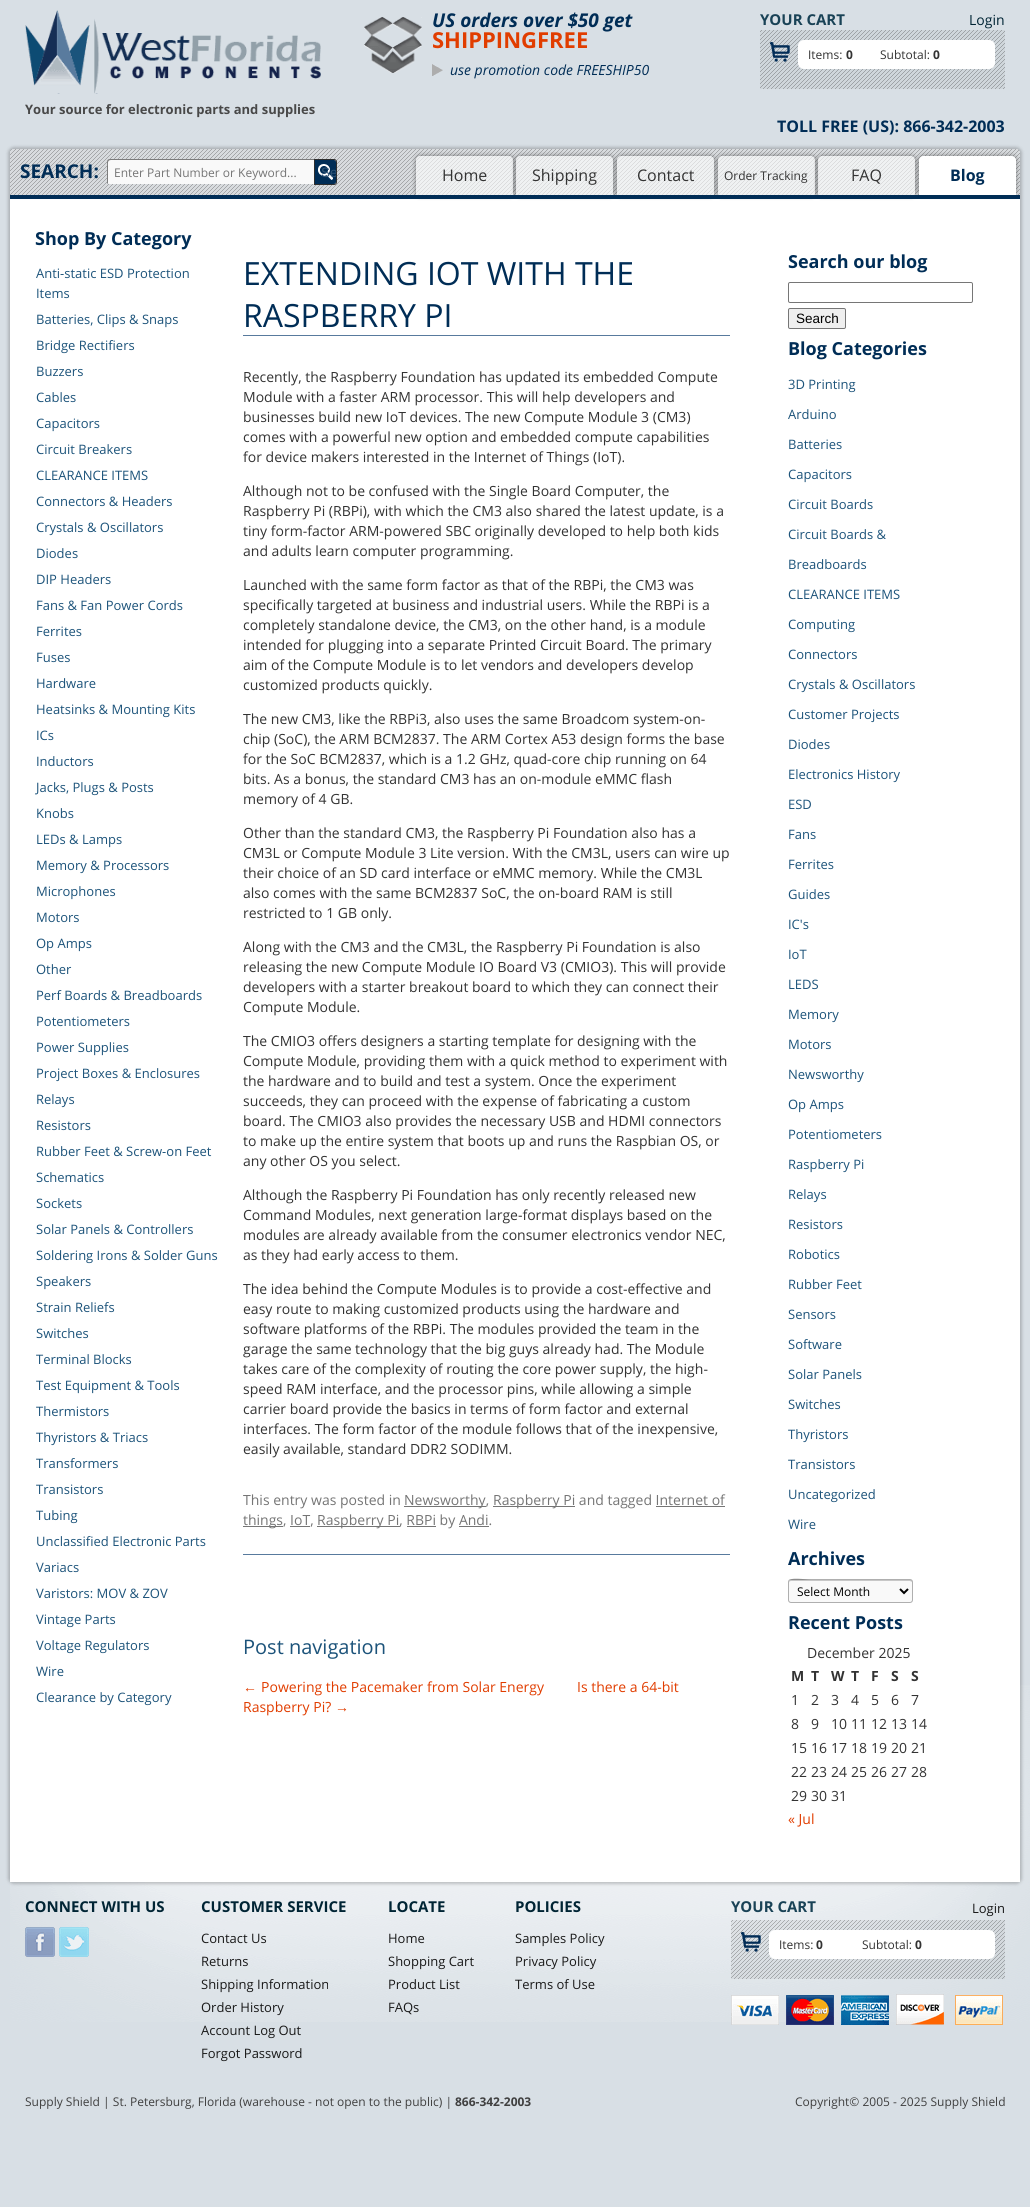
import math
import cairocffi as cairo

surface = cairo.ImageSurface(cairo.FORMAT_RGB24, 1030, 2207)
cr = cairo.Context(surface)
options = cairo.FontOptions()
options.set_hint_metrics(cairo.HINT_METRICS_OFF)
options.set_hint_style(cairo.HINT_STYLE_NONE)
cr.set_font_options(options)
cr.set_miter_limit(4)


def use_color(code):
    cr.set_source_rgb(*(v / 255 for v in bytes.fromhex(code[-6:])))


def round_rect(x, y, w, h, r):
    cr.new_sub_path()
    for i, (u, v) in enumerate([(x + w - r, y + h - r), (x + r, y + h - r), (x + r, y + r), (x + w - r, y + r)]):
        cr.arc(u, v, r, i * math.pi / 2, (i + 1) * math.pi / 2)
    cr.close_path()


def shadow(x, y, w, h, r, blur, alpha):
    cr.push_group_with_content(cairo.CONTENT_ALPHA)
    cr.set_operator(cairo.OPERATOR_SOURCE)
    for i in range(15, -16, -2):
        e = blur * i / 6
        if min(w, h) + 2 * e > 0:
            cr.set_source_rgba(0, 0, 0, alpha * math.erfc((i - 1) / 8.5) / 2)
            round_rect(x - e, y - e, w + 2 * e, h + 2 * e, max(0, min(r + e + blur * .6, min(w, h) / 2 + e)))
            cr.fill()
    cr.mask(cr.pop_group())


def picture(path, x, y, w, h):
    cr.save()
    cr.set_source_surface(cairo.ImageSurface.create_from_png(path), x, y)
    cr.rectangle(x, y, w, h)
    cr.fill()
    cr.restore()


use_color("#d8dfe5")
cr.paint()
picture("img1.png", 25, 10, 296, 84)
cr.select_font_face("Open Sans", cairo.FONT_SLANT_NORMAL, cairo.FONT_WEIGHT_BOLD)
cr.set_font_size(13)
use_color("#484848")
cr.move_to(25, 114)
cr.show_text("Your source for electronic parts and supplies")
picture("img2.png", 364, 17, 58, 56)
cr.select_font_face("Open Sans", cairo.FONT_SLANT_ITALIC, cairo.FONT_WEIGHT_BOLD)
cr.set_font_size(19)
use_color("#002d56")
cr.move_to(432, 27)
cr.show_text("US orders over $50 get")
cr.select_font_face("Open Sans", cairo.FONT_SLANT_NORMAL, cairo.FONT_WEIGHT_BOLD)
cr.set_font_size(22)
use_color("#e13d00")
cr.move_to(432, 48)
cr.show_text("SHIPPINGFREE")
picture("img3.png", 432, 64, 11, 12)
cr.select_font_face("Open Sans", cairo.FONT_SLANT_ITALIC)
cr.set_font_size(14)
use_color("#002d56")
cr.move_to(450, 75)
cr.show_text("use promotion code FREESHIP50")
cr.select_font_face("Open Sans", cairo.FONT_SLANT_NORMAL, cairo.FONT_WEIGHT_BOLD)
cr.set_font_size(15)
use_color("#194256")
cr.move_to(760, 25)
cr.show_text("YOUR CART")
cr.select_font_face("Open Sans")
cr.set_font_size(14)
use_color("#002434")
cr.move_to(969, 25)
cr.show_text("Login")
picture("img4.png", 760, 30, 245, 59)
picture("img5.png", 770, 42, 20, 20)
use_color("#ffffff")
round_rect(798, 40, 197, 29, 6)
cr.fill()
cr.set_font_size(12)
use_color("#333333")
cr.move_to(808, 59)
cr.show_text("Items:")
cr.select_font_face("Open Sans", cairo.FONT_SLANT_NORMAL, cairo.FONT_WEIGHT_BOLD)
cr.move_to(846, 59)
cr.show_text("0")
cr.select_font_face("Open Sans")
cr.move_to(880, 59)
cr.show_text("Subtotal:")
cr.select_font_face("Open Sans", cairo.FONT_SLANT_NORMAL, cairo.FONT_WEIGHT_BOLD)
cr.move_to(933, 59)
cr.show_text("0")
cr.set_font_size(16)
use_color("#002d56")
cr.move_to(777, 132)
cr.show_text("TOLL FREE (US): 866-342-2003")
picture("img8.png", 10, 1685, 1020, 337)
use_color("#000000")
shadow(8, 147, 1014, 1737, 6, 1.5, 0.2)
use_color("#ffffff")
cr.new_path()
cr.move_to(14, 149)
cr.line_to(1016, 149)
cr.curve_to(1018, 149, 1020, 151, 1020, 153)
cr.line_to(1020, 1882)
cr.line_to(10, 1882)
cr.line_to(10, 153)
cr.curve_to(10, 151, 12, 149, 14, 149)
cr.close_path()
cr.fill()
use_color("#e2e5e8")
cr.new_path()
cr.move_to(14, 149)
cr.line_to(1016, 149)
cr.curve_to(1018, 149, 1020, 151, 1020, 153)
cr.line_to(1020, 199)
cr.line_to(10, 199)
cr.line_to(10, 153)
cr.curve_to(10, 151, 12, 149, 14, 149)
cr.close_path()
cr.fill()
picture("img6.png", 10, 149, 1010, 46)
cr.set_font_size(19)
use_color("#002d56")
cr.move_to(20, 178)
cr.show_text("SEARCH:")
use_color("#f9f9f9")
cr.new_path()
cr.move_to(110, 159)
cr.line_to(314, 159)
cr.line_to(314, 184)
cr.line_to(110, 184)
cr.curve_to(108, 184, 107, 183, 107, 182)
cr.line_to(107, 162)
cr.curve_to(107, 160, 108, 159, 110, 159)
cr.close_path()
cr.fill()
cr.set_source_rgba(0, 0, 0, 0.5)
cr.new_path()
cr.move_to(111, 160)
cr.line_to(314, 160)
cr.line_to(314, 159)
cr.line_to(110, 159)
cr.curve_to(108, 159, 107, 160, 107, 162)
cr.line_to(107, 182)
cr.curve_to(107, 183, 107, 183, 108, 184)
cr.line_to(108, 166)
cr.curve_to(108, 164, 107, 160, 111, 160)
cr.close_path()
cr.fill()
cr.select_font_face("Open Sans")
cr.set_font_size(12)
use_color("#757575")
cr.move_to(114, 177)
cr.show_text("Enter Part Number or Keyword...")
use_color("#002d56")
cr.new_path()
cr.move_to(315, 160)
cr.line_to(334, 160)
cr.curve_to(335, 160, 336, 161, 336, 162)
cr.line_to(336, 182)
cr.curve_to(336, 183, 335, 184, 334, 184)
cr.line_to(315, 184)
cr.close_path()
cr.fill()
picture("img7.png", 318, 164, 15, 16)
cr.new_path()
cr.move_to(314.5, 159.5)
cr.line_to(334, 159.5)
cr.curve_to(335.5, 159.5, 336.5, 160.5, 336.5, 162)
cr.line_to(336.5, 182)
cr.curve_to(336.5, 183.5, 335.5, 184.5, 334, 184.5)
cr.line_to(314.5, 184.5)
cr.close_path()
use_color("#2e2e2e")
cr.set_line_width(1)
cr.stroke()
cr.save()
cr.new_path()
cr.move_to(315, 160)
cr.line_to(334, 160)
cr.curve_to(335, 160, 336, 161, 336, 162)
cr.line_to(336, 182)
cr.curve_to(336, 183, 335, 184, 334, 184)
cr.line_to(315, 184)
cr.close_path()
cr.clip()
cr.select_font_face("Liberation Sans")
cr.set_font_size(13.5)
use_color("#325677")
cr.move_to(321, 177)
cr.show_text("Se")
cr.restore()
cr.save()
cr.set_fill_rule(cairo.FILL_RULE_EVEN_ODD)
cr.new_path()
cr.move_to(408, 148)
cr.line_to(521, 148)
cr.line_to(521, 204)
cr.line_to(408, 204)
cr.close_path()
cr.move_to(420, 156)
cr.line_to(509, 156)
cr.curve_to(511, 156, 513, 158, 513, 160)
cr.line_to(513, 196)
cr.line_to(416, 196)
cr.line_to(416, 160)
cr.curve_to(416, 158, 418, 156, 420, 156)
cr.close_path()
cr.clip()
use_color("#000000")
shadow(415, 155, 99, 42, 5, 2, 0.3)
cr.restore()
cr.set_source_rgba(1, 1, 1, 0.6)
cr.new_path()
cr.move_to(420, 156)
cr.line_to(509, 156)
cr.curve_to(511, 156, 513, 158, 513, 160)
cr.line_to(513, 196)
cr.line_to(416, 196)
cr.line_to(416, 160)
cr.curve_to(416, 158, 418, 156, 420, 156)
cr.close_path()
cr.fill()
cr.set_font_size(16)
use_color("#333333")
cr.move_to(442, 181)
cr.show_text("Home")
cr.save()
cr.set_fill_rule(cairo.FILL_RULE_EVEN_ODD)
cr.new_path()
cr.move_to(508, 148)
cr.line_to(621, 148)
cr.line_to(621, 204)
cr.line_to(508, 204)
cr.close_path()
cr.move_to(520, 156)
cr.line_to(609, 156)
cr.curve_to(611, 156, 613, 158, 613, 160)
cr.line_to(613, 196)
cr.line_to(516, 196)
cr.line_to(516, 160)
cr.curve_to(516, 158, 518, 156, 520, 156)
cr.close_path()
cr.clip()
use_color("#000000")
shadow(515, 155, 99, 42, 5, 2, 0.3)
cr.restore()
cr.set_source_rgba(1, 1, 1, 0.6)
cr.new_path()
cr.move_to(520, 156)
cr.line_to(609, 156)
cr.curve_to(611, 156, 613, 158, 613, 160)
cr.line_to(613, 196)
cr.line_to(516, 196)
cr.line_to(516, 160)
cr.curve_to(516, 158, 518, 156, 520, 156)
cr.close_path()
cr.fill()
use_color("#333333")
cr.move_to(532, 181)
cr.show_text("Shipping")
cr.save()
cr.set_fill_rule(cairo.FILL_RULE_EVEN_ODD)
cr.new_path()
cr.move_to(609, 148)
cr.line_to(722, 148)
cr.line_to(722, 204)
cr.line_to(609, 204)
cr.close_path()
cr.move_to(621, 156)
cr.line_to(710, 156)
cr.curve_to(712, 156, 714, 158, 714, 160)
cr.line_to(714, 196)
cr.line_to(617, 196)
cr.line_to(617, 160)
cr.curve_to(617, 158, 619, 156, 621, 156)
cr.close_path()
cr.clip()
use_color("#000000")
shadow(616, 155, 99, 42, 5, 2, 0.3)
cr.restore()
cr.set_source_rgba(1, 1, 1, 0.6)
cr.new_path()
cr.move_to(621, 156)
cr.line_to(710, 156)
cr.curve_to(712, 156, 714, 158, 714, 160)
cr.line_to(714, 196)
cr.line_to(617, 196)
cr.line_to(617, 160)
cr.curve_to(617, 158, 619, 156, 621, 156)
cr.close_path()
cr.fill()
use_color("#333333")
cr.move_to(637, 181)
cr.show_text("Contact")
cr.save()
cr.set_fill_rule(cairo.FILL_RULE_EVEN_ODD)
cr.new_path()
cr.move_to(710, 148)
cr.line_to(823, 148)
cr.line_to(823, 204)
cr.line_to(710, 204)
cr.close_path()
cr.move_to(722, 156)
cr.line_to(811, 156)
cr.curve_to(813, 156, 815, 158, 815, 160)
cr.line_to(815, 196)
cr.line_to(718, 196)
cr.line_to(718, 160)
cr.curve_to(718, 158, 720, 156, 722, 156)
cr.close_path()
cr.clip()
use_color("#000000")
shadow(717, 155, 99, 42, 5, 2, 0.3)
cr.restore()
cr.set_source_rgba(1, 1, 1, 0.6)
cr.new_path()
cr.move_to(722, 156)
cr.line_to(811, 156)
cr.curve_to(813, 156, 815, 158, 815, 160)
cr.line_to(815, 196)
cr.line_to(718, 196)
cr.line_to(718, 160)
cr.curve_to(718, 158, 720, 156, 722, 156)
cr.close_path()
cr.fill()
cr.set_font_size(12)
use_color("#333333")
cr.move_to(724, 180)
cr.show_text("Order Tracking")
cr.save()
cr.set_fill_rule(cairo.FILL_RULE_EVEN_ODD)
cr.new_path()
cr.move_to(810, 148)
cr.line_to(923, 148)
cr.line_to(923, 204)
cr.line_to(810, 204)
cr.close_path()
cr.move_to(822, 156)
cr.line_to(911, 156)
cr.curve_to(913, 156, 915, 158, 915, 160)
cr.line_to(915, 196)
cr.line_to(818, 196)
cr.line_to(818, 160)
cr.curve_to(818, 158, 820, 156, 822, 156)
cr.close_path()
cr.clip()
use_color("#000000")
shadow(817, 155, 99, 42, 5, 2, 0.3)
cr.restore()
cr.set_source_rgba(1, 1, 1, 0.6)
cr.new_path()
cr.move_to(822, 156)
cr.line_to(911, 156)
cr.curve_to(913, 156, 915, 158, 915, 160)
cr.line_to(915, 196)
cr.line_to(818, 196)
cr.line_to(818, 160)
cr.curve_to(818, 158, 820, 156, 822, 156)
cr.close_path()
cr.fill()
cr.set_font_size(16)
use_color("#333333")
cr.move_to(851, 181)
cr.show_text("FAQ")
use_color("#000000")
shadow(918, 155, 99, 41, 5, 2, 0.3)
use_color("#ffffff")
cr.new_path()
cr.move_to(923, 156)
cr.line_to(1012, 156)
cr.curve_to(1014, 156, 1016, 158, 1016, 160)
cr.line_to(1016, 195)
cr.line_to(919, 195)
cr.line_to(919, 160)
cr.curve_to(919, 158, 921, 156, 923, 156)
cr.close_path()
cr.fill()
cr.select_font_face("Open Sans", cairo.FONT_SLANT_NORMAL, cairo.FONT_WEIGHT_BOLD)
use_color("#002d56")
cr.move_to(950, 181)
cr.show_text("Blog")
cr.rectangle(10, 195, 1010, 4)
cr.fill()
cr.set_font_size(18)
cr.move_to(35, 245)
cr.show_text("Shop By Category")
cr.select_font_face("Open Sans")
cr.set_font_size(13)
use_color("#1c537a")
cr.move_to(36, 278)
cr.show_text("Anti-static ESD Protection")
cr.move_to(36, 298)
cr.show_text("Items")
cr.move_to(36, 324)
cr.show_text("Batteries, Clips & Snaps")
cr.move_to(36, 350)
cr.show_text("Bridge Rectifiers")
cr.move_to(36, 376)
cr.show_text("Buzzers")
cr.move_to(36, 402)
cr.show_text("Cables")
cr.move_to(36, 428)
cr.show_text("Capacitors")
cr.move_to(36, 454)
cr.show_text("Circuit Breakers")
cr.move_to(36, 480)
cr.show_text("CLEARANCE ITEMS")
cr.move_to(36, 506)
cr.show_text("Connectors & Headers")
cr.move_to(36, 532)
cr.show_text("Crystals & Oscillators")
cr.move_to(36, 558)
cr.show_text("Diodes")
cr.move_to(36, 584)
cr.show_text("DIP Headers")
cr.move_to(36, 610)
cr.show_text("Fans & Fan Power Cords")
cr.move_to(36, 636)
cr.show_text("Ferrites")
cr.move_to(36, 662)
cr.show_text("Fuses")
cr.move_to(36, 688)
cr.show_text("Hardware")
cr.move_to(36, 714)
cr.show_text("Heatsinks & Mounting Kits")
cr.move_to(36, 740)
cr.show_text("ICs")
cr.move_to(36, 766)
cr.show_text("Inductors")
cr.move_to(36, 792)
cr.show_text("Jacks, Plugs & Posts")
cr.move_to(36, 818)
cr.show_text("Knobs")
cr.move_to(36, 844)
cr.show_text("LEDs & Lamps")
cr.move_to(36, 870)
cr.show_text("Memory & Processors")
cr.move_to(36, 896)
cr.show_text("Microphones")
cr.move_to(36, 922)
cr.show_text("Motors")
cr.move_to(36, 948)
cr.show_text("Op Amps")
cr.move_to(36, 974)
cr.show_text("Other")
cr.move_to(36, 1000)
cr.show_text("Perf Boards & Breadboards")
cr.move_to(36, 1026)
cr.show_text("Potentiometers")
cr.move_to(36, 1052)
cr.show_text("Power Supplies")
cr.move_to(36, 1078)
cr.show_text("Project Boxes & Enclosures")
cr.move_to(36, 1104)
cr.show_text("Relays")
cr.move_to(36, 1130)
cr.show_text("Resistors")
cr.move_to(36, 1156)
cr.show_text("Rubber Feet & Screw-on Feet")
cr.move_to(36, 1182)
cr.show_text("Schematics")
cr.move_to(36, 1208)
cr.show_text("Sockets")
cr.move_to(36, 1234)
cr.show_text("Solar Panels & Controllers")
cr.move_to(36, 1260)
cr.show_text("Soldering Irons & Solder Guns")
cr.move_to(36, 1286)
cr.show_text("Speakers")
cr.move_to(36, 1312)
cr.show_text("Strain Reliefs")
cr.move_to(36, 1338)
cr.show_text("Switches")
cr.move_to(36, 1364)
cr.show_text("Terminal Blocks")
cr.move_to(36, 1390)
cr.show_text("Test Equipment & Tools")
cr.move_to(36, 1416)
cr.show_text("Thermistors")
cr.move_to(36, 1442)
cr.show_text("Thyristors & Triacs")
cr.move_to(36, 1468)
cr.show_text("Transformers")
cr.move_to(36, 1494)
cr.show_text("Transistors")
cr.move_to(36, 1520)
cr.show_text("Tubing")
cr.move_to(36, 1546)
cr.show_text("Unclassified Electronic Parts")
cr.move_to(36, 1572)
cr.show_text("Variacs")
cr.move_to(36, 1598)
cr.show_text("Varistors: MOV & ZOV")
cr.move_to(36, 1624)
cr.show_text("Vintage Parts")
cr.move_to(36, 1650)
cr.show_text("Voltage Regulators")
cr.move_to(36, 1676)
cr.show_text("Wire")
cr.move_to(36, 1702)
cr.show_text("Clearance by Category")
use_color("#587a9d")
cr.rectangle(243, 1554, 487, 1)
cr.fill()
cr.rectangle(243, 335, 487, 1)
cr.fill()
cr.set_font_size(32)
use_color("#002d56")
cr.move_to(243, 285)
cr.show_text("EXTENDING IOT WITH THE")
cr.move_to(243, 327)
cr.show_text("RASPBERRY PI")
cr.set_font_size(14)
use_color("#333333")
cr.move_to(243, 382)
cr.show_text("Recently, the Raspberry Foundation has updated its embedded Compute")
cr.move_to(243, 402)
cr.show_text("Module with a faster ARM processor. This will help developers and")
cr.move_to(243, 422)
cr.show_text("businesses build new IoT devices. The new Compute Module 3 (CM3)")
cr.move_to(243, 442)
cr.show_text("comes with a powerful new option and embedded compute capabilities")
cr.move_to(243, 462)
cr.show_text("for device makers interested in the Internet of Things (IoT).")
cr.move_to(243, 496)
cr.show_text("Although not to be confused with the Single Board Computer, the")
cr.move_to(243, 516)
cr.show_text("Raspberry Pi (RBPi), with which the CM3 also shared the latest update, is a")
cr.move_to(243, 536)
cr.show_text("tiny form-factor ARM-powered SBC originally developed to help both kids")
cr.move_to(243, 556)
cr.show_text("and adults learn computer programming.")
cr.move_to(243, 590)
cr.show_text("Launched with the same form factor as that of the RBPi, the CM3 was")
cr.move_to(243, 610)
cr.show_text("specifically targeted at business and industrial users. While the RBPi is a")
cr.move_to(243, 630)
cr.show_text("completely standalone device, the CM3, on the other hand, is a module")
cr.move_to(243, 650)
cr.show_text("intended for plugging into a separate Printed Circuit Board. The primary")
cr.move_to(243, 670)
cr.show_text("aim of the Compute Module is to let vendors and developers develop")
cr.move_to(243, 690)
cr.show_text("customized products quickly.")
cr.move_to(243, 724)
cr.show_text("The new CM3, like the RBPi3, also uses the same Broadcom system-on-")
cr.move_to(243, 744)
cr.show_text("chip (SoC), the ARM BCM2837. The ARM Cortex A53 design forms the base")
cr.move_to(243, 764)
cr.show_text("for the SoC BCM2837, which is a 1.2 GHz, quad-core chip running on 64")
cr.move_to(243, 784)
cr.show_text("bits. As a bonus, the standard CM3 has an on-module eMMC flash")
cr.move_to(243, 804)
cr.show_text("memory of 4 GB.")
cr.move_to(243, 838)
cr.show_text("Other than the standard CM3, the Raspberry Pi Foundation also has a")
cr.move_to(243, 858)
cr.show_text("CM3L or Compute Module 3 Lite version. With the CM3L, users can wire up")
cr.move_to(243, 878)
cr.show_text("their choice of an SD card interface or eMMC memory. While the CM3L")
cr.move_to(243, 898)
cr.show_text("also comes with the same BCM2837 SoC, the on-board RAM is still")
cr.move_to(243, 918)
cr.show_text("restricted to 1 GB only.")
cr.move_to(243, 952)
cr.show_text("Along with the CM3 and the CM3L, the Raspberry Pi Foundation is also")
cr.move_to(243, 972)
cr.show_text("releasing the new Compute Module IO Board V3 (CMIO3). This will provide")
cr.move_to(243, 992)
cr.show_text("developers with a starter breakout board to which they can connect their")
cr.move_to(243, 1012)
cr.show_text("Compute Module.")
cr.move_to(243, 1046)
cr.show_text("The CMIO3 offers designers a starting template for designing with the")
cr.move_to(243, 1066)
cr.show_text("Compute Module, providing them with a quick method to experiment with")
cr.move_to(243, 1086)
cr.show_text("the hardware and to build and test a system. Once the experiment")
cr.move_to(243, 1106)
cr.show_text("succeeds, they can proceed with the expense of fabricating a custom")
cr.move_to(243, 1126)
cr.show_text("board. The CMIO3 also provides the necessary USB and HDMI connectors")
cr.move_to(243, 1146)
cr.show_text("to make up the entire system that boots up and runs the Raspbian OS, or")
cr.move_to(243, 1166)
cr.show_text("any other OS you select.")
cr.move_to(243, 1200)
cr.show_text("Although the Raspberry Pi Foundation has only recently released new")
cr.move_to(243, 1220)
cr.show_text("Command Modules, next generation large-format displays based on the")
cr.move_to(243, 1240)
cr.show_text("modules are already available from the consumer electronics vendor NEC,")
cr.move_to(243, 1260)
cr.show_text("as they had early access to them.")
cr.move_to(243, 1294)
cr.show_text("The idea behind the Compute Modules is to provide a cost-effective and")
cr.move_to(243, 1314)
cr.show_text("easy route to making customized products using the hardware and")
cr.move_to(243, 1334)
cr.show_text("software platforms of the RBPi. The modules provided the team in the")
cr.move_to(243, 1354)
cr.show_text("garage the same technology that the big guys already had. The Module")
cr.move_to(243, 1374)
cr.show_text("takes care of the complexity of routing the core power supply, the high-")
cr.move_to(243, 1394)
cr.show_text("speed RAM interface, and the processor pins, while allowing a simple")
cr.move_to(243, 1414)
cr.show_text("carrier board provide the basics in terms of form factor and external")
cr.move_to(243, 1434)
cr.show_text("interfaces. The form factor of the module follows that of the inexpensive,")
cr.move_to(243, 1454)
cr.show_text("easily available, standard DDR2 SODIMM.")
use_color("#757575")
cr.move_to(243, 1505)
cr.show_text("This entry was posted in")
cr.rectangle(404, 1506, 82, 1)
cr.fill()
cr.move_to(404, 1505)
cr.show_text("Newsworthy,")
cr.rectangle(493, 1506, 82, 1)
cr.fill()
cr.move_to(493, 1505)
cr.show_text("Raspberry Pi and tagged Internet of")
cr.rectangle(243, 1526, 40, 1)
cr.fill()
cr.move_to(243, 1525)
cr.show_text("things, IoT,")
cr.rectangle(656, 1506, 69, 1)
cr.fill()
cr.rectangle(317, 1526, 83, 1)
cr.fill()
cr.move_to(317, 1525)
cr.show_text("Raspberry Pi, RBPi by Andi.")
cr.rectangle(290, 1526, 20, 1)
cr.fill()
cr.rectangle(407, 1526, 29, 1)
cr.fill()
cr.rectangle(459, 1526, 30, 1)
cr.fill()
cr.set_font_size(20)
use_color("#1c537a")
cr.move_to(243, 1654)
cr.show_text("Post navigation")
cr.select_font_face("Liberation Sans")
cr.set_font_size(14)
use_color("#e13d00")
cr.move_to(243, 1692)
cr.show_text("←")
cr.select_font_face("Open Sans")
cr.move_to(261, 1692)
cr.show_text("Powering the Pacemaker from Solar Energy")
cr.move_to(577, 1692)
cr.show_text("Is there a 64-bit")
cr.move_to(243, 1712)
cr.show_text("Raspberry Pi?")
cr.select_font_face("Liberation Sans")
cr.move_to(335, 1712)
cr.show_text("→")
cr.select_font_face("Open Sans", cairo.FONT_SLANT_NORMAL, cairo.FONT_WEIGHT_BOLD)
cr.set_font_size(18)
use_color("#002d56")
cr.move_to(788, 268)
cr.show_text("Search our blog")
round_rect(788.5, 282.5, 184, 20, 1.5)
use_color("#767676")
cr.stroke()
use_color("#efefef")
round_rect(788.5, 308.5, 57, 20, 1.5)
cr.fill_preserve()
use_color("#767676")
cr.stroke()
cr.select_font_face("Liberation Sans")
cr.set_font_size(13.5)
use_color("#000000")
cr.move_to(796, 323)
cr.show_text("Search")
cr.select_font_face("Open Sans", cairo.FONT_SLANT_NORMAL, cairo.FONT_WEIGHT_BOLD)
cr.set_font_size(18)
use_color("#002d56")
cr.move_to(788, 355)
cr.show_text("Blog Categories")
cr.select_font_face("Open Sans")
cr.set_font_size(13)
use_color("#1c537a")
cr.move_to(788, 389)
cr.show_text("3D Printing")
cr.move_to(788, 419)
cr.show_text("Arduino")
cr.move_to(788, 449)
cr.show_text("Batteries")
cr.move_to(788, 479)
cr.show_text("Capacitors")
cr.move_to(788, 509)
cr.show_text("Circuit Boards")
cr.move_to(788, 539)
cr.show_text("Circuit Boards &")
cr.move_to(788, 569)
cr.show_text("Breadboards")
cr.move_to(788, 599)
cr.show_text("CLEARANCE ITEMS")
cr.move_to(788, 629)
cr.show_text("Computing")
cr.move_to(788, 659)
cr.show_text("Connectors")
cr.move_to(788, 689)
cr.show_text("Crystals & Oscillators")
cr.move_to(788, 719)
cr.show_text("Customer Projects")
cr.move_to(788, 749)
cr.show_text("Diodes")
cr.move_to(788, 779)
cr.show_text("Electronics History")
cr.move_to(788, 809)
cr.show_text("ESD")
cr.move_to(788, 839)
cr.show_text("Fans")
cr.move_to(788, 869)
cr.show_text("Ferrites")
cr.move_to(788, 899)
cr.show_text("Guides")
cr.move_to(788, 929)
cr.show_text("IC's")
cr.move_to(788, 959)
cr.show_text("IoT")
cr.move_to(788, 989)
cr.show_text("LEDS")
cr.move_to(788, 1019)
cr.show_text("Memory")
cr.move_to(788, 1049)
cr.show_text("Motors")
cr.move_to(788, 1079)
cr.show_text("Newsworthy")
cr.move_to(788, 1109)
cr.show_text("Op Amps")
cr.move_to(788, 1139)
cr.show_text("Potentiometers")
cr.move_to(788, 1169)
cr.show_text("Raspberry Pi")
cr.move_to(788, 1199)
cr.show_text("Relays")
cr.move_to(788, 1229)
cr.show_text("Resistors")
cr.move_to(788, 1259)
cr.show_text("Robotics")
cr.move_to(788, 1289)
cr.show_text("Rubber Feet")
cr.move_to(788, 1319)
cr.show_text("Sensors")
cr.move_to(788, 1349)
cr.show_text("Software")
cr.move_to(788, 1379)
cr.show_text("Solar Panels")
cr.move_to(788, 1409)
cr.show_text("Switches")
cr.move_to(788, 1439)
cr.show_text("Thyristors")
cr.move_to(788, 1469)
cr.show_text("Transistors")
cr.move_to(788, 1499)
cr.show_text("Uncategorized")
cr.move_to(788, 1529)
cr.show_text("Wire")
cr.select_font_face("Open Sans", cairo.FONT_SLANT_NORMAL, cairo.FONT_WEIGHT_BOLD)
cr.set_font_size(18)
use_color("#002d56")
cr.move_to(788, 1565)
cr.show_text("Archives")
use_color("#f9f9f9")
round_rect(788, 1579, 125, 24, 3)
cr.fill()
use_color("#c7c7c7")
cr.new_path()
cr.move_to(791, 1581)
cr.line_to(910, 1581)
cr.line_to(912, 1582)
cr.line_to(912, 1583)
cr.curve_to(912, 1582, 912, 1581, 911, 1580)
cr.line_to(811, 1580)
cr.curve_to(805, 1580, 789, 1575, 789, 1583)
cr.curve_to(789, 1582, 790, 1581, 791, 1581)
cr.close_path()
cr.fill()
round_rect(788.5, 1579.5, 124, 23, 2.5)
cr.set_source_rgba(0, 0, 0, 0.3)
cr.stroke()
cr.new_path()
cr.move_to(900, 1589)
cr.line_to(904, 1593)
cr.line_to(908, 1589)
use_color("#000000")
cr.set_line_width(2)
cr.stroke()
cr.select_font_face("Open Sans")
cr.set_font_size(12)
cr.move_to(797, 1596)
cr.show_text("Select Month")
cr.select_font_face("Open Sans", cairo.FONT_SLANT_NORMAL, cairo.FONT_WEIGHT_BOLD)
cr.set_font_size(18)
use_color("#002d56")
cr.move_to(788, 1629)
cr.show_text("Recent Posts")
cr.select_font_face("Open Sans")
cr.set_font_size(14)
use_color("#333333")
cr.move_to(807, 1658)
cr.show_text("December 2025")
cr.select_font_face("Open Sans", cairo.FONT_SLANT_NORMAL, cairo.FONT_WEIGHT_BOLD)
cr.move_to(791, 1681)
cr.show_text("M")
cr.move_to(811, 1681)
cr.show_text("T")
cr.move_to(831, 1681)
cr.show_text("W")
cr.move_to(851, 1681)
cr.show_text("T")
cr.move_to(871, 1681)
cr.show_text("F")
cr.move_to(891, 1681)
cr.show_text("S")
cr.move_to(911, 1681)
cr.show_text("S")
cr.select_font_face("Open Sans")
cr.move_to(791, 1705)
cr.show_text("1")
cr.move_to(811, 1705)
cr.show_text("2")
cr.move_to(831, 1705)
cr.show_text("3")
cr.move_to(851, 1705)
cr.show_text("4")
cr.move_to(871, 1705)
cr.show_text("5")
cr.move_to(891, 1705)
cr.show_text("6")
cr.move_to(911, 1705)
cr.show_text("7")
cr.move_to(791, 1729)
cr.show_text("8")
cr.move_to(811, 1729)
cr.show_text("9")
cr.move_to(831, 1729)
cr.show_text("10")
cr.move_to(851, 1729)
cr.show_text("11")
cr.move_to(871, 1729)
cr.show_text("12")
cr.move_to(891, 1729)
cr.show_text("13")
cr.move_to(911, 1729)
cr.show_text("14")
cr.move_to(791, 1753)
cr.show_text("15")
cr.move_to(811, 1753)
cr.show_text("16")
cr.move_to(831, 1753)
cr.show_text("17")
cr.move_to(851, 1753)
cr.show_text("18")
cr.move_to(871, 1753)
cr.show_text("19")
cr.move_to(891, 1753)
cr.show_text("20")
cr.move_to(911, 1753)
cr.show_text("21")
cr.move_to(791, 1777)
cr.show_text("22")
cr.move_to(811, 1777)
cr.show_text("23")
cr.move_to(831, 1777)
cr.show_text("24")
cr.move_to(851, 1777)
cr.show_text("25")
cr.move_to(871, 1777)
cr.show_text("26")
cr.move_to(891, 1777)
cr.show_text("27")
cr.move_to(911, 1777)
cr.show_text("28")
cr.move_to(791, 1801)
cr.show_text("29")
cr.move_to(811, 1801)
cr.show_text("30")
cr.move_to(831, 1801)
cr.show_text("31")
use_color("#e13d00")
cr.move_to(788, 1824)
cr.show_text("« Jul")
cr.select_font_face("Open Sans", cairo.FONT_SLANT_NORMAL, cairo.FONT_WEIGHT_BOLD)
cr.set_font_size(15)
use_color("#002434")
cr.move_to(25, 1912)
cr.show_text("CONNECT WITH US")
picture("img9.png", 25, 1927, 30, 30)
picture("img10.png", 59, 1927, 30, 30)
cr.move_to(201, 1912)
cr.show_text("CUSTOMER SERVICE")
cr.select_font_face("Open Sans")
cr.set_font_size(13)
use_color("#191919")
cr.move_to(201, 1943)
cr.show_text("Contact Us")
cr.move_to(201, 1966)
cr.show_text("Returns")
cr.move_to(201, 1989)
cr.show_text("Shipping Information")
cr.move_to(201, 2012)
cr.show_text("Order History")
cr.move_to(201, 2035)
cr.show_text("Account Log Out")
cr.move_to(201, 2058)
cr.show_text("Forgot Password")
cr.select_font_face("Open Sans", cairo.FONT_SLANT_NORMAL, cairo.FONT_WEIGHT_BOLD)
cr.set_font_size(15)
use_color("#002434")
cr.move_to(388, 1912)
cr.show_text("LOCATE")
cr.select_font_face("Open Sans")
cr.set_font_size(13)
use_color("#191919")
cr.move_to(388, 1943)
cr.show_text("Home")
cr.move_to(388, 1966)
cr.show_text("Shopping Cart")
cr.move_to(388, 1989)
cr.show_text("Product List")
cr.move_to(388, 2012)
cr.show_text("FAQs")
cr.select_font_face("Open Sans", cairo.FONT_SLANT_NORMAL, cairo.FONT_WEIGHT_BOLD)
cr.set_font_size(15)
use_color("#002434")
cr.move_to(515, 1912)
cr.show_text("POLICIES")
cr.select_font_face("Open Sans")
cr.set_font_size(13)
use_color("#191919")
cr.move_to(515, 1943)
cr.show_text("Samples Policy")
cr.move_to(515, 1966)
cr.show_text("Privacy Policy")
cr.move_to(515, 1989)
cr.show_text("Terms of Use")
cr.select_font_face("Open Sans", cairo.FONT_SLANT_NORMAL, cairo.FONT_WEIGHT_BOLD)
cr.set_font_size(15)
use_color("#194256")
cr.move_to(731, 1912)
cr.show_text("YOUR CART")
cr.select_font_face("Open Sans")
cr.set_font_size(13)
use_color("#191919")
cr.move_to(972, 1913)
cr.show_text("Login")
picture("img11.png", 731, 1920, 274, 59)
picture("img12.png", 741, 1932, 20, 20)
use_color("#ffffff")
round_rect(769, 1930, 226, 29, 6)
cr.fill()
cr.set_font_size(12)
use_color("#333333")
cr.move_to(779, 1949)
cr.show_text("Items:")
cr.select_font_face("Open Sans", cairo.FONT_SLANT_NORMAL, cairo.FONT_WEIGHT_BOLD)
cr.move_to(816, 1949)
cr.show_text("0")
cr.select_font_face("Open Sans")
cr.move_to(862, 1949)
cr.show_text("Subtotal:")
cr.select_font_face("Open Sans", cairo.FONT_SLANT_NORMAL, cairo.FONT_WEIGHT_BOLD)
cr.move_to(915, 1949)
cr.show_text("0")
picture("img13.png", 731, 1995, 48, 30)
picture("img14.png", 786, 1995, 48, 30)
picture("img15.png", 841, 1995, 48, 30)
picture("img16.png", 896, 1994, 48, 31)
picture("img17.png", 955, 1995, 48, 30)
cr.select_font_face("Open Sans")
use_color("#404040")
cr.move_to(25, 2106)
cr.show_text("Supply Shield | St. Petersburg, Florida (warehouse - not open to the public) |")
cr.select_font_face("Open Sans", cairo.FONT_SLANT_NORMAL, cairo.FONT_WEIGHT_BOLD)
cr.move_to(455, 2106)
cr.show_text("866-342-2003")
cr.select_font_face("Open Sans")
cr.move_to(795, 2106)
cr.show_text("Copyright© 2005 - 2025 Supply Shield")
surface.write_to_png("result.png")
